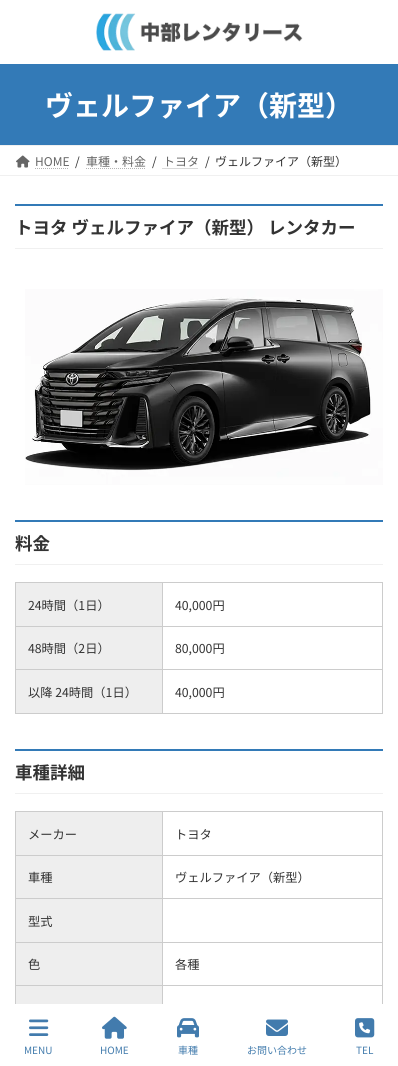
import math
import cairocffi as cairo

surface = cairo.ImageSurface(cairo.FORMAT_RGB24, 398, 1066)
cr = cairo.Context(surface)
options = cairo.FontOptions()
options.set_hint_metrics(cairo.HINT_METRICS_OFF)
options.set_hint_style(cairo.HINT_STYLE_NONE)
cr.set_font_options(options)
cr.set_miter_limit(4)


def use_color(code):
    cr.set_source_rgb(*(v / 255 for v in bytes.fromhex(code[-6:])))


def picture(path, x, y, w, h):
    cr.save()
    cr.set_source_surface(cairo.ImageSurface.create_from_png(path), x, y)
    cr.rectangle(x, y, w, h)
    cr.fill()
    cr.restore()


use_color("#ffffff")
cr.paint()
picture("img1.png", 96, 13, 207, 38)
use_color("#337ab7")
cr.rectangle(0, 64, 398, 81)
cr.fill()
cr.select_font_face("Noto Sans JP", cairo.FONT_SLANT_NORMAL, cairo.FONT_WEIGHT_BOLD)
cr.set_font_size(28)
use_color("#ffffff")
cr.move_to(45, 116)
cr.show_text("ヴェルファイア（新型）")
use_color("#f0f0f0")
cr.rectangle(0, 145, 398, 1)
cr.fill()
cr.rectangle(0, 175, 398, 1)
cr.fill()
picture("img2.png", 16, 155, 14, 13)
cr.select_font_face("Noto Sans JP")
cr.set_font_size(12)
use_color("#666666")
cr.move_to(35, 166)
cr.show_text("HOME")
cr.new_path()
cr.move_to(35, 168.5)
cr.line_to(69, 168.5)
use_color("#b3b3b3")
cr.set_line_width(1)
cr.set_dash([1, 1])
cr.stroke()
use_color("#333333")
cr.move_to(75, 166)
cr.show_text("/")
use_color("#666666")
cr.move_to(86, 166)
cr.show_text("車種・料金")
cr.new_path()
cr.move_to(86, 168.5)
cr.line_to(146, 168.5)
use_color("#b3b3b3")
cr.stroke()
use_color("#333333")
cr.move_to(152, 166)
cr.show_text("/")
use_color("#666666")
cr.move_to(163, 166)
cr.show_text("トヨタ")
cr.new_path()
cr.move_to(162.5, 168.5)
cr.line_to(198.5, 168.5)
use_color("#b3b3b3")
cr.stroke()
use_color("#333333")
cr.move_to(205, 166)
cr.show_text("/")
cr.move_to(215, 166)
cr.show_text("ヴェルファイア（新型）")
use_color("#337ab7")
cr.rectangle(15, 204, 368, 2)
cr.fill()
use_color("#f0f0f0")
cr.rectangle(15, 248, 368, 1)
cr.fill()
cr.select_font_face("Noto Sans JP", cairo.FONT_SLANT_NORMAL, cairo.FONT_WEIGHT_BOLD)
cr.set_font_size(17.5)
use_color("#333333")
cr.move_to(15, 234)
cr.show_text("トヨタ ヴェルファイア（新型） レンタカー")
picture("img3.png", 25, 289, 358, 196)
use_color("#337ab7")
cr.rectangle(15, 520, 368, 2)
cr.fill()
use_color("#f0f0f0")
cr.rectangle(15, 564, 368, 1)
cr.fill()
use_color("#333333")
cr.move_to(15, 550)
cr.show_text("料金")
use_color("#eeeeee")
cr.rectangle(16, 583, 146, 43)
cr.fill()
use_color("#cccccc")
cr.rectangle(162, 582, 221, 1)
cr.fill()
cr.rectangle(162, 626, 221, 1)
cr.fill()
cr.rectangle(162, 669, 221, 1)
cr.fill()
cr.rectangle(382, 669, 1, 45)
cr.fill()
cr.rectangle(162, 713, 221, 1)
cr.fill()
cr.rectangle(162, 669, 1, 45)
cr.fill()
cr.rectangle(15, 669, 148, 1)
cr.fill()
cr.rectangle(162, 626, 1, 44)
cr.fill()
cr.rectangle(15, 626, 148, 1)
cr.fill()
cr.rectangle(162, 582, 1, 45)
cr.fill()
cr.rectangle(15, 582, 148, 1)
cr.fill()
cr.rectangle(15, 713, 148, 1)
cr.fill()
cr.rectangle(15, 669, 1, 45)
cr.fill()
cr.rectangle(15, 626, 1, 44)
cr.fill()
cr.rectangle(15, 582, 1, 45)
cr.fill()
cr.select_font_face("Noto Sans JP")
cr.set_font_size(12.25)
use_color("#333333")
cr.move_to(28, 610)
cr.show_text("24時間（1日）")
use_color("#cccccc")
cr.rectangle(382, 626, 1, 44)
cr.fill()
cr.rectangle(382, 582, 1, 45)
cr.fill()
use_color("#333333")
cr.move_to(175, 610)
cr.show_text("40,000円")
use_color("#eeeeee")
cr.rectangle(16, 627, 146, 42)
cr.fill()
use_color("#333333")
cr.move_to(28, 653)
cr.show_text("48時間（2日）")
cr.move_to(175, 653)
cr.show_text("80,000円")
use_color("#eeeeee")
cr.rectangle(16, 670, 146, 43)
cr.fill()
use_color("#333333")
cr.move_to(28, 697)
cr.show_text("以降 24時間（1日）")
cr.move_to(175, 697)
cr.show_text("40,000円")
use_color("#337ab7")
cr.rectangle(15, 749, 368, 2)
cr.fill()
use_color("#f0f0f0")
cr.rectangle(15, 793, 368, 1)
cr.fill()
cr.select_font_face("Noto Sans JP", cairo.FONT_SLANT_NORMAL, cairo.FONT_WEIGHT_BOLD)
cr.set_font_size(17.5)
use_color("#333333")
cr.move_to(15, 779)
cr.show_text("車種詳細")
use_color("#eeeeee")
cr.rectangle(16, 812, 146, 43)
cr.fill()
use_color("#cccccc")
cr.rectangle(162, 811, 221, 1)
cr.fill()
cr.rectangle(162, 855, 221, 1)
cr.fill()
cr.rectangle(162, 898, 221, 1)
cr.fill()
cr.rectangle(162, 942, 221, 1)
cr.fill()
cr.rectangle(162, 985, 221, 1)
cr.fill()
cr.rectangle(162, 985, 1, 19)
cr.fill()
cr.rectangle(15, 985, 148, 1)
cr.fill()
cr.rectangle(162, 942, 1, 44)
cr.fill()
cr.rectangle(15, 942, 148, 1)
cr.fill()
cr.rectangle(162, 898, 1, 45)
cr.fill()
cr.rectangle(15, 898, 148, 1)
cr.fill()
cr.rectangle(162, 855, 1, 44)
cr.fill()
cr.rectangle(15, 855, 148, 1)
cr.fill()
cr.rectangle(162, 811, 1, 45)
cr.fill()
cr.rectangle(15, 811, 148, 1)
cr.fill()
cr.rectangle(15, 985, 1, 19)
cr.fill()
cr.rectangle(15, 942, 1, 44)
cr.fill()
cr.rectangle(15, 898, 1, 45)
cr.fill()
cr.rectangle(15, 855, 1, 44)
cr.fill()
cr.rectangle(15, 811, 1, 45)
cr.fill()
cr.select_font_face("Noto Sans JP")
cr.set_font_size(12.25)
use_color("#333333")
cr.move_to(28, 839)
cr.show_text("メーカー")
use_color("#cccccc")
cr.rectangle(382, 985, 1, 19)
cr.fill()
cr.rectangle(382, 942, 1, 44)
cr.fill()
cr.rectangle(382, 898, 1, 45)
cr.fill()
cr.rectangle(382, 855, 1, 44)
cr.fill()
cr.rectangle(382, 811, 1, 45)
cr.fill()
use_color("#333333")
cr.move_to(175, 839)
cr.show_text("トヨタ")
use_color("#eeeeee")
cr.rectangle(16, 856, 146, 42)
cr.fill()
use_color("#333333")
cr.move_to(28, 882)
cr.show_text("車種")
cr.move_to(175, 882)
cr.show_text("ヴェルファイア（新型）")
use_color("#eeeeee")
cr.rectangle(16, 899, 146, 43)
cr.fill()
use_color("#333333")
cr.move_to(28, 926)
cr.show_text("型式")
use_color("#eeeeee")
cr.rectangle(16, 943, 146, 42)
cr.fill()
use_color("#333333")
cr.move_to(28, 969)
cr.show_text("色")
cr.move_to(175, 969)
cr.show_text("各種")
use_color("#eeeeee")
cr.rectangle(16, 986, 146, 18)
cr.fill()
picture("img4.png", 29, 1019, 20, 17)
cr.set_font_size(10)
use_color("#437cad")
cr.move_to(24, 1054)
cr.show_text("MENU")
picture("img5.png", 102, 1016, 25, 23)
cr.move_to(100, 1054)
cr.show_text("HOME")
picture("img6.png", 177, 1018, 22, 20)
cr.move_to(178, 1054)
cr.show_text("車種")
picture("img7.png", 266, 1019, 22, 17)
cr.move_to(247, 1054)
cr.show_text("お問い合わせ")
picture("img8.png", 355, 1018, 20, 20)
cr.move_to(356, 1054)
cr.show_text("TEL")
surface.write_to_png("result.png")
